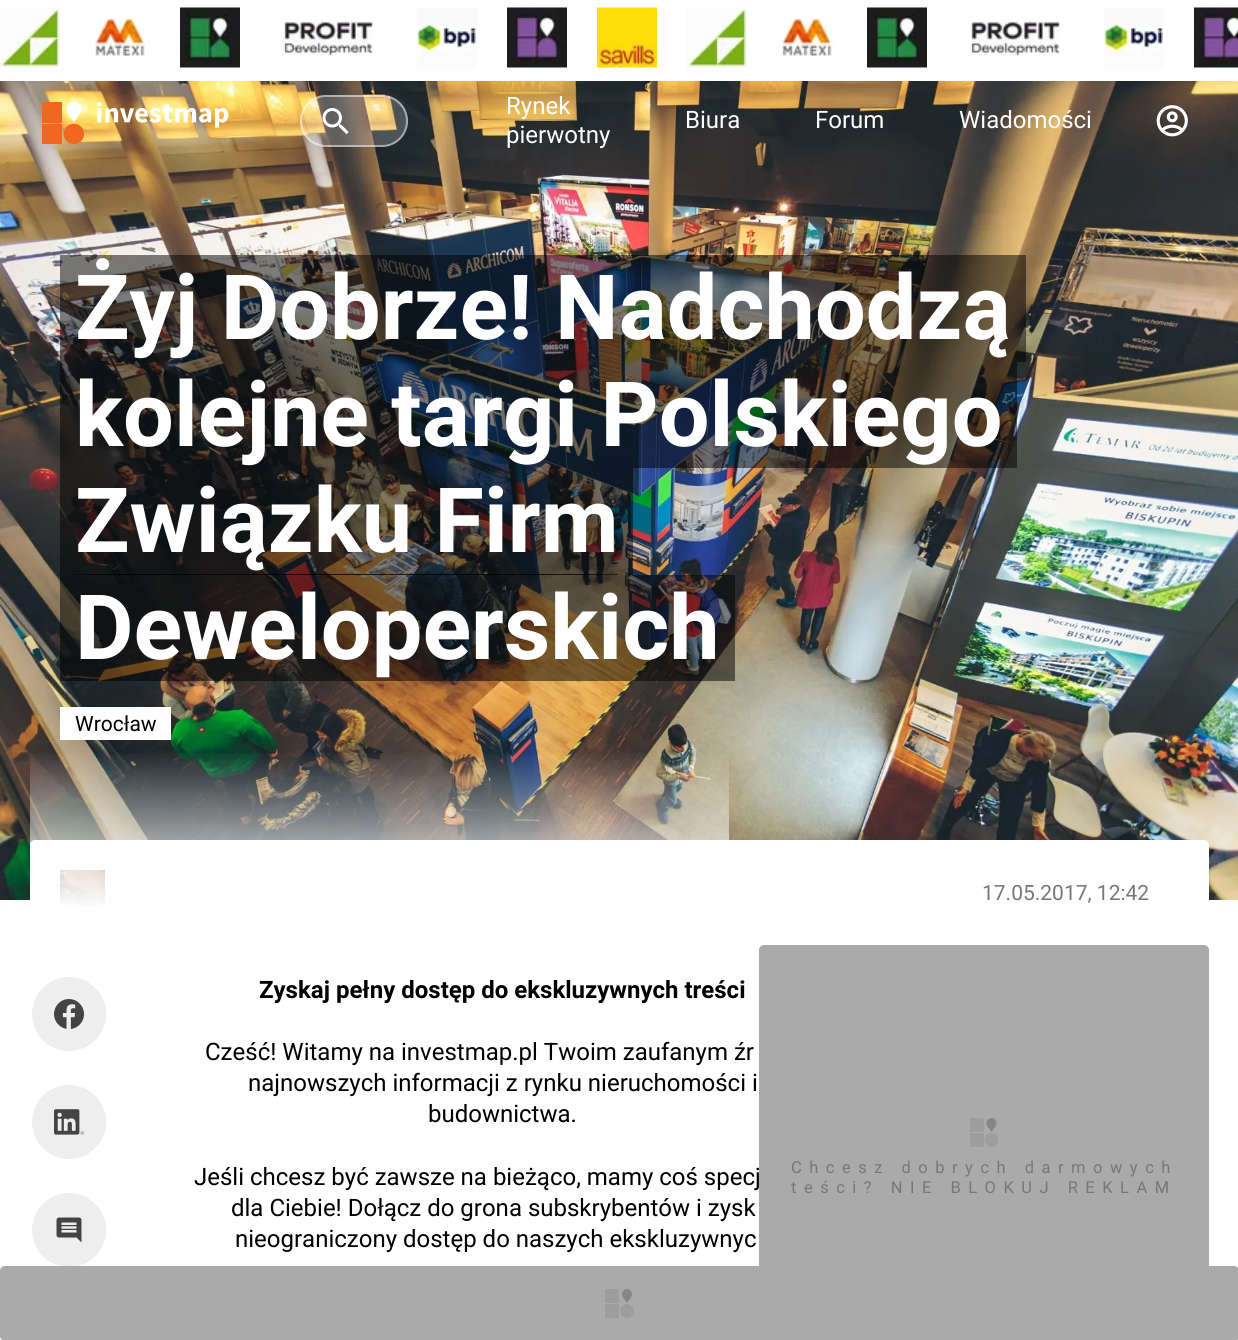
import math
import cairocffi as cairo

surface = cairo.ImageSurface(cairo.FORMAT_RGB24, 1238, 1340)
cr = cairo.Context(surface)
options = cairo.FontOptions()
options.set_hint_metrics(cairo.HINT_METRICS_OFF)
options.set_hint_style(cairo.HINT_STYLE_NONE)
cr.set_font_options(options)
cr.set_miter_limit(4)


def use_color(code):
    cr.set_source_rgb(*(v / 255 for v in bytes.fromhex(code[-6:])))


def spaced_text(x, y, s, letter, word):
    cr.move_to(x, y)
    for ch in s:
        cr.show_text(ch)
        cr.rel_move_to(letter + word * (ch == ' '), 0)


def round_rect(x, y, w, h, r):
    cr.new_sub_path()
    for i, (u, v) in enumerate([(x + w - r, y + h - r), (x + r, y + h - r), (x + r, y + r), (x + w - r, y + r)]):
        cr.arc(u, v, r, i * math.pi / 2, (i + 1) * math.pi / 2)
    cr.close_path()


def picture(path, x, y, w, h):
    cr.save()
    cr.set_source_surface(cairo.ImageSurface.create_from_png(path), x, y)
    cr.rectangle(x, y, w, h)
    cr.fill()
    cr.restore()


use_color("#ffffff")
cr.paint()
picture("img1.png", 0, 7, 60, 61)
picture("img2.png", 90, 18, 60, 38)
picture("img3.png", 180, 7, 60, 61)
picture("img4.png", 282, 20, 91, 36)
picture("img5.png", 417, 7, 60, 60)
picture("img6.png", 507, 7, 60, 61)
picture("img7.png", 597, 7, 60, 61)
picture("img1.png", 687, 7, 60, 61)
picture("img2.png", 777, 18, 60, 38)
picture("img3.png", 867, 7, 60, 61)
picture("img8.png", 969, 20, 91, 36)
picture("img5.png", 1104, 7, 60, 60)
picture("img9.png", 1194, 7, 44, 61)
picture("img13.png", 0, 81, 1238, 819)
picture("img10.png", 42, 101, 187, 44)
cr.set_source_rgba(1, 1, 1, 0.2)
round_rect(300, 95, 108, 52, 26)
cr.fill()
round_rect(301, 96, 106, 50, 25)
cr.set_source_rgba(1, 1, 1, 0.5)
cr.stroke()
picture("img11.png", 322, 108, 27, 27)
cr.select_font_face("Roboto")
cr.set_font_size(24)
use_color("#ffffff")
cr.move_to(506, 114)
cr.show_text("Rynek")
cr.move_to(506, 143)
cr.show_text("pierwotny")
cr.move_to(685, 128)
cr.show_text("Biura")
cr.move_to(815, 128)
cr.show_text("Forum")
cr.move_to(959, 128)
cr.show_text("Wiadomości")
picture("img12.png", 1156, 105, 32, 32)
cr.set_source_rgba(0, 0, 0, 0.5)
cr.rectangle(75, 255, 936, 107)
cr.fill()
cr.select_font_face("Roboto", cairo.FONT_SLANT_NORMAL, cairo.FONT_WEIGHT_BOLD)
cr.set_font_size(90)
use_color("#ffffff")
cr.move_to(75, 339)
cr.show_text("Żyj Dobrze! Nadchodzą")
cr.set_source_rgba(0, 0, 0, 0.5)
cr.new_path()
cr.move_to(60, 255)
cr.line_to(60, 362)
cr.line_to(996, 362)
cr.line_to(75, 362)
cr.line_to(75, 255)
cr.close_path()
cr.fill()
cr.new_path()
cr.move_to(90, 362)
cr.line_to(1026, 362)
cr.line_to(1026, 255)
cr.line_to(1011, 255)
cr.line_to(1011, 362)
cr.close_path()
cr.fill()
cr.rectangle(75, 362, 927, 106)
cr.fill()
use_color("#ffffff")
cr.move_to(75, 446)
cr.show_text("kolejne targi Polskiego")
cr.set_source_rgba(0, 0, 0, 0.5)
cr.rectangle(60, 362, 15, 106)
cr.fill()
cr.rectangle(1002, 362, 15, 106)
cr.fill()
cr.new_path()
cr.move_to(60, 468)
cr.line_to(60, 575)
cr.line_to(603, 575)
cr.line_to(603, 574)
cr.line_to(75, 574)
cr.line_to(75, 468)
cr.close_path()
cr.fill()
cr.new_path()
cr.move_to(90, 574)
cr.line_to(90, 575)
cr.line_to(633, 575)
cr.line_to(633, 468)
cr.line_to(618, 468)
cr.line_to(618, 574)
cr.close_path()
cr.fill()
cr.rectangle(75, 468, 543, 107)
cr.fill()
use_color("#ffffff")
cr.move_to(75, 552)
cr.show_text("Związku Firm")
cr.set_source_rgba(0, 0, 0, 0.5)
cr.rectangle(75, 575, 645, 106)
cr.fill()
use_color("#ffffff")
cr.move_to(75, 659)
cr.show_text("Deweloperskich")
cr.set_source_rgba(0, 0, 0, 0.5)
cr.rectangle(60, 575, 15, 106)
cr.fill()
cr.rectangle(720, 575, 15, 106)
cr.fill()
use_color("#ffffff")
cr.rectangle(60, 707, 111, 33)
cr.fill()
cr.select_font_face("Roboto")
cr.set_font_size(21)
use_color("#000000")
cr.move_to(75, 731)
cr.show_text("Wrocław")
use_color("#ffffff")
round_rect(30, 840, 1179, 105, 5)
cr.fill()
picture("img14.png", 60, 870, 45, 37)
use_color("#777777")
cr.move_to(982, 900)
cr.show_text("17.05.2017, 12:42")
use_color("#eeeeee")
cr.new_path()
cr.arc(69, 1014, 38, 0, 2 * math.pi)
cr.fill_preserve()
use_color("#ffffff")
cr.stroke()
picture("img15.png", 54, 999, 30, 30)
use_color("#eeeeee")
cr.arc(69, 1122, 38, 0, 2 * math.pi)
cr.fill_preserve()
use_color("#ffffff")
cr.stroke()
picture("img16.png", 54, 1109, 30, 26)
use_color("#eeeeee")
cr.arc(69, 1230, 38, 0, 2 * math.pi)
cr.fill_preserve()
use_color("#ffffff")
cr.stroke()
picture("img17.png", 56, 1217, 26, 26)
gradient = cairo.LinearGradient(380, 750, 380, 975)
gradient.add_color_stop_rgba(0, 1, 1, 1, 0)
gradient.add_color_stop_rgba(0.7, 1, 1, 1, 1)
cr.set_source(gradient)
cr.rectangle(30, 753, 699, 154)
cr.fill()
cr.select_font_face("Roboto", cairo.FONT_SLANT_NORMAL, cairo.FONT_WEIGHT_BOLD)
cr.set_font_size(24)
use_color("#000000")
cr.move_to(259, 998)
cr.show_text("Zyskaj pełny dostęp do ekskluzywnych treści")
cr.select_font_face("Roboto")
cr.move_to(205, 1060)
cr.show_text("Cześć! Witamy na investmap.pl Twoim zaufanym źr")
cr.move_to(248, 1091)
cr.show_text("najnowszych informacji z rynku nieruchomości i")
cr.move_to(428, 1122)
cr.show_text("budownictwa.")
cr.move_to(194, 1185)
cr.show_text("Jeśli chcesz być zawsze na bieżąco, mamy coś specj")
cr.move_to(231, 1216)
cr.show_text("dla Ciebie! Dołącz do grona subskrybentów i zysk")
cr.move_to(235, 1247)
cr.show_text("nieograniczony dostęp do naszych ekskluzywnyc")
use_color("#aaaaaa")
round_rect(759, 945, 450, 375, 5)
cr.fill()
picture("img18.png", 970, 1118, 29, 29)
cr.set_font_size(16.5)
use_color("#777777")
spaced_text(791, 1173, "Chcesz dobrych darmowych", 7.5, 0)
spaced_text(791, 1193, "teści? NIE BLOKUJ REKLAM", 7.5, 0)
use_color("#aaaaaa")
round_rect(0, 1266, 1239, 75, 5)
cr.fill()
picture("img19.png", 605, 1289, 29, 29)
surface.write_to_png("result.png")
